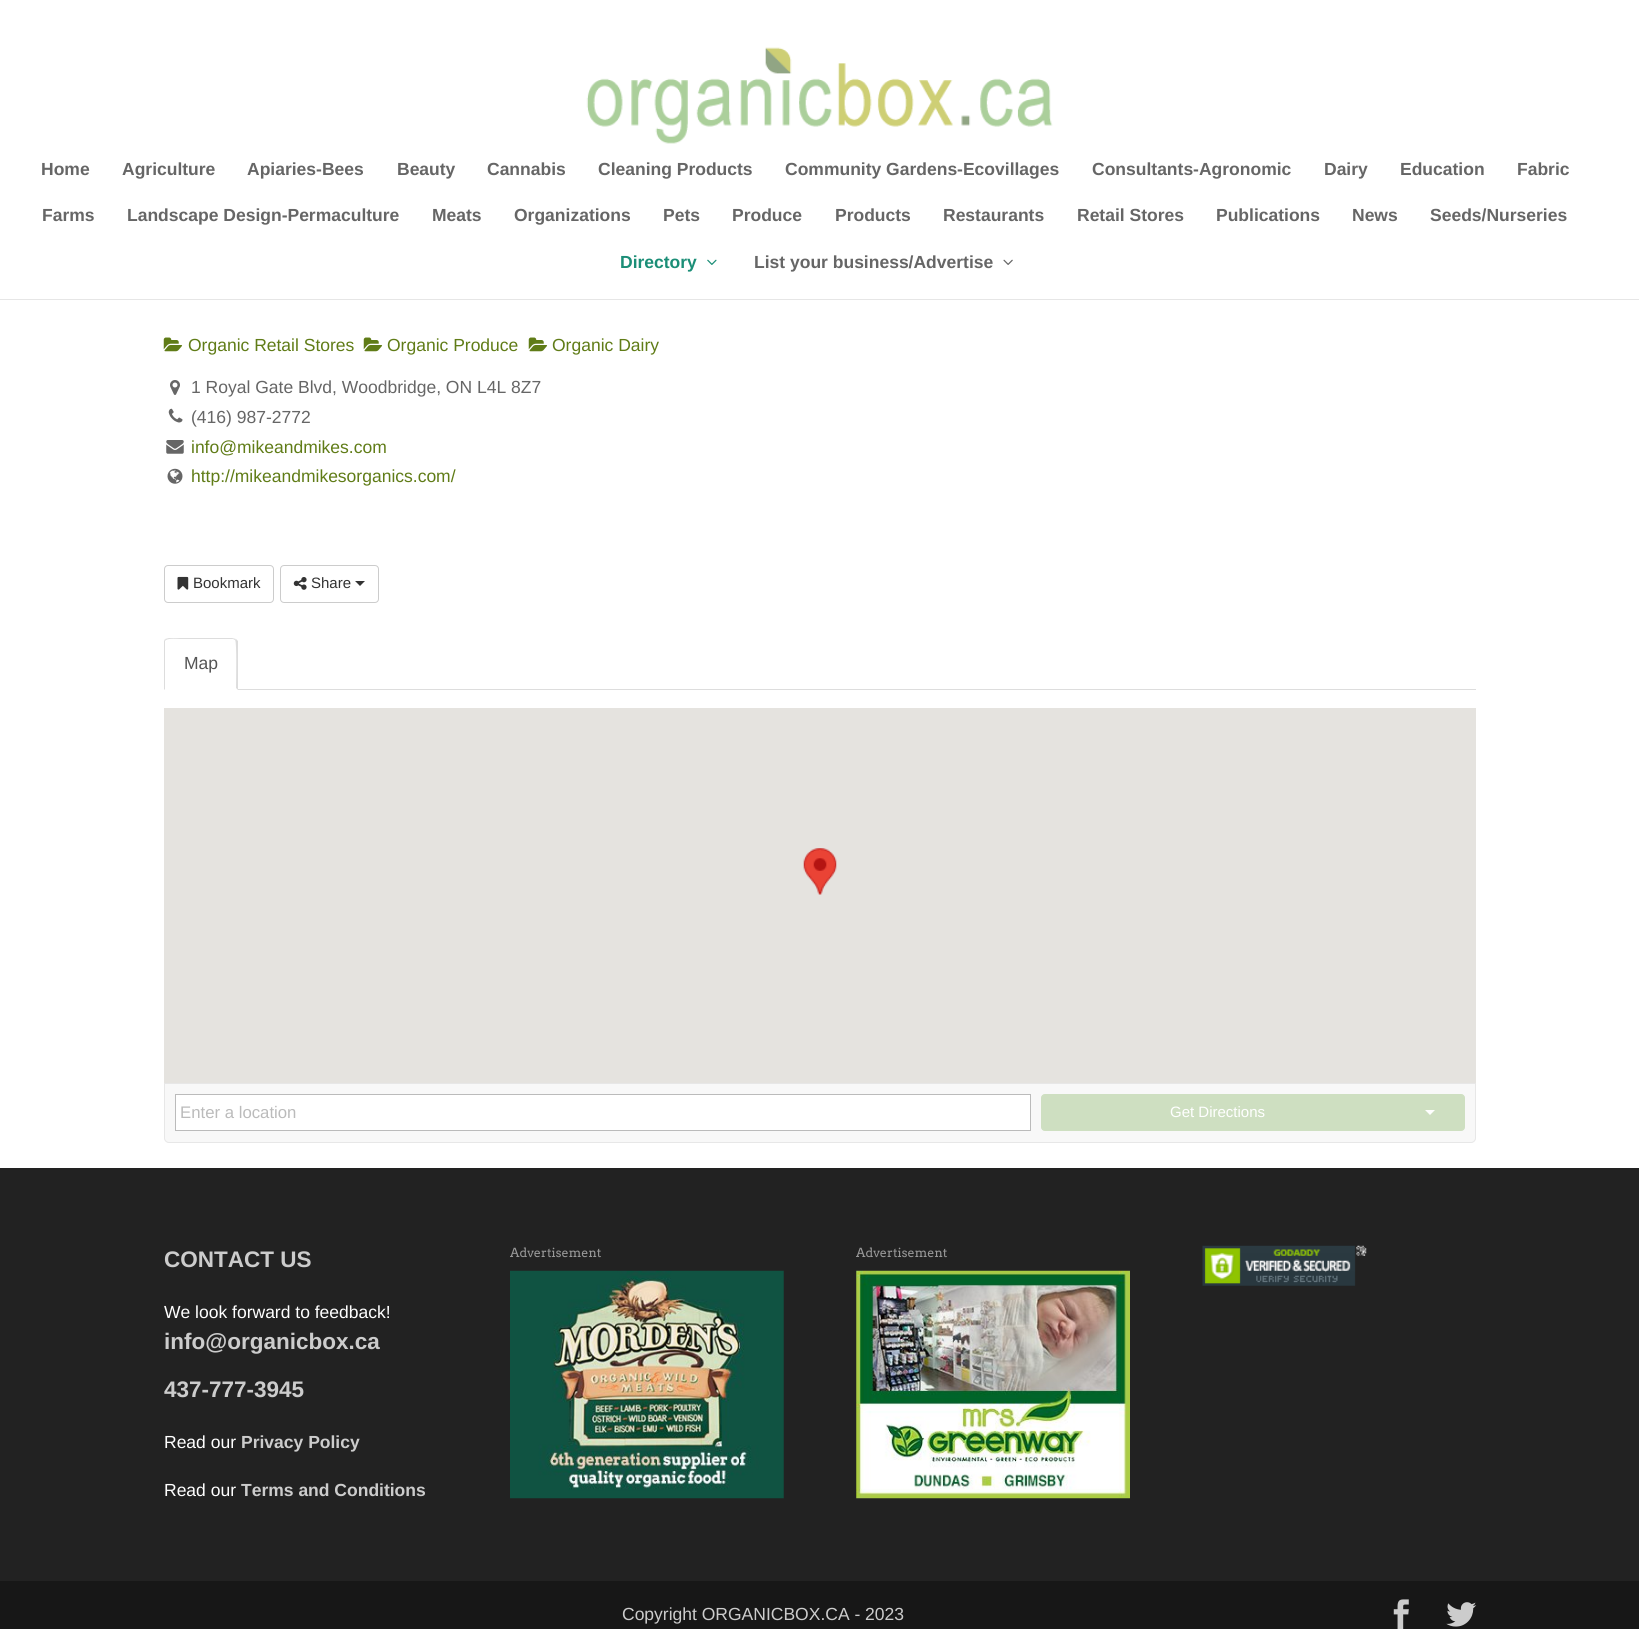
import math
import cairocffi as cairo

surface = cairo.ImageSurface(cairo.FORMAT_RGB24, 1639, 1629)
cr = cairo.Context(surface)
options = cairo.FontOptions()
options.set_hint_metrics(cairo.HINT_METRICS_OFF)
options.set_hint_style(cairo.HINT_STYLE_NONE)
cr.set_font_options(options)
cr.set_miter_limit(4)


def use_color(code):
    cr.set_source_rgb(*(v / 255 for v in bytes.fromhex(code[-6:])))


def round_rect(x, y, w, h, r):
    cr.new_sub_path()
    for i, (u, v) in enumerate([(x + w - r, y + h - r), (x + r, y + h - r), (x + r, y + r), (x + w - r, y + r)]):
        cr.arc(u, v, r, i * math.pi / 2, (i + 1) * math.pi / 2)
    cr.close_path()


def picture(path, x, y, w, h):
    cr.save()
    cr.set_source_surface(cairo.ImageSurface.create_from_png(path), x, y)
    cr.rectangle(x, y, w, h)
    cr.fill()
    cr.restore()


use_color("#ffffff")
cr.paint()
use_color("#e6e6e6")
cr.rectangle(0, 299, 1639, 1)
cr.fill()
picture("img1.png", 586, 47, 467, 97)
cr.select_font_face("Arimo", cairo.FONT_SLANT_NORMAL, cairo.FONT_WEIGHT_BOLD)
cr.set_font_size(17.5)
use_color("#666666")
cr.move_to(41, 175)
cr.show_text("Home")
cr.move_to(122, 175)
cr.show_text("Agriculture")
cr.move_to(247, 175)
cr.show_text("Apiaries-Bees")
cr.move_to(397, 175)
cr.show_text("Beauty")
cr.move_to(487, 175)
cr.show_text("Cannabis")
cr.move_to(598, 175)
cr.show_text("Cleaning Products")
cr.move_to(785, 175)
cr.show_text("Community Gardens-Ecovillages")
cr.move_to(1092, 175)
cr.show_text("Consultants-Agronomic")
cr.move_to(1324, 175)
cr.show_text("Dairy")
cr.move_to(1400, 175)
cr.show_text("Education")
cr.move_to(1517, 175)
cr.show_text("Fabric")
cr.move_to(42, 221)
cr.show_text("Farms")
cr.move_to(127, 221)
cr.show_text("Landscape Design-Permaculture")
cr.move_to(432, 221)
cr.show_text("Meats")
cr.move_to(514, 221)
cr.show_text("Organizations")
cr.move_to(663, 221)
cr.show_text("Pets")
cr.move_to(732, 221)
cr.show_text("Produce")
cr.move_to(835, 221)
cr.show_text("Products")
cr.move_to(943, 221)
cr.show_text("Restaurants")
cr.move_to(1077, 221)
cr.show_text("Retail Stores")
cr.move_to(1216, 221)
cr.show_text("Publications")
cr.move_to(1352, 221)
cr.show_text("News")
cr.move_to(1430, 221)
cr.show_text("Seeds/Nurseries")
use_color("#1b8e77")
cr.move_to(620, 268)
cr.show_text("Directory")
picture("img2.png", 707, 259, 10, 6)
use_color("#666666")
cr.move_to(754, 268)
cr.show_text("List your business/Advertise")
picture("img3.png", 1003, 259, 10, 6)
picture("img4.png", 163, 337, 20, 15)
cr.select_font_face("Arimo")
use_color("#607c17")
cr.move_to(188, 351)
cr.show_text("Organic Retail Stores")
picture("img4.png", 363, 337, 20, 15)
cr.move_to(387, 351)
cr.show_text("Organic Produce")
picture("img4.png", 528, 337, 20, 15)
cr.move_to(552, 351)
cr.show_text("Organic Dairy")
picture("img5.png", 170, 380, 10, 15)
use_color("#666666")
cr.move_to(191, 393)
cr.show_text("1 Royal Gate Blvd, Woodbridge, ON L4L 8Z7")
picture("img6.png", 168, 408, 15, 15)
cr.move_to(191, 423)
cr.show_text("(416) 987-2772")
picture("img7.png", 166, 440, 18, 14)
use_color("#607c17")
cr.move_to(191, 453)
cr.show_text("info@mikeandmikes.com")
picture("img8.png", 167, 468, 16, 16)
cr.move_to(191, 482)
cr.show_text("http://mikeandmikesorganics.com/")
round_rect(164.5, 565.5, 109, 37, 3.5)
use_color("#cccccc")
cr.set_line_width(1)
cr.stroke()
picture("img9.png", 177, 576, 12, 14)
cr.set_font_size(15)
use_color("#333333")
cr.move_to(193, 588)
cr.show_text("Bookmark")
round_rect(280.5, 565.5, 98, 37, 3.5)
use_color("#cccccc")
cr.stroke()
picture("img10.png", 293, 577, 14, 13)
use_color("#333333")
cr.move_to(311, 588)
cr.show_text("Share")
cr.new_path()
cr.move_to(355, 581)
cr.line_to(365, 581)
cr.line_to(360, 586)
cr.close_path()
cr.fill()
use_color("#dddddd")
cr.rectangle(238, 689, 1238, 1)
cr.fill()
cr.new_path()
cr.move_to(169, 638)
cr.line_to(165, 639)
cr.line_to(166, 640)
cr.curve_to(169, 638, 179, 639, 180, 639)
cr.line_to(233, 639)
cr.line_to(235, 640)
cr.line_to(236, 639)
cr.line_to(232, 638)
cr.close_path()
cr.fill()
cr.new_path()
cr.move_to(238, 641)
cr.line_to(238, 690)
cr.line_to(236, 688)
cr.curve_to(236, 683, 237, 641, 235, 640)
cr.line_to(236, 639)
cr.close_path()
cr.fill()
cr.new_path()
cr.move_to(165, 639)
cr.line_to(164, 641)
cr.line_to(164, 690)
cr.line_to(165, 689)
cr.line_to(165, 641)
cr.line_to(166, 640)
cr.close_path()
cr.fill()
cr.set_font_size(17.5)
use_color("#555555")
cr.move_to(184, 669)
cr.show_text("Map")
use_color("#e5e3df")
cr.rectangle(164, 708, 1312, 375)
cr.fill()
picture("img11.png", 803, 848, 34, 47)
use_color("#f8f8f8")
cr.new_path()
cr.move_to(164.5, 1083.5)
cr.line_to(1475.5, 1083.5)
cr.line_to(1475.5, 1138)
cr.curve_to(1475.5, 1140.5, 1473.5, 1142.5, 1471, 1142.5)
cr.line_to(169, 1142.5)
cr.curve_to(166.5, 1142.5, 164.5, 1140.5, 164.5, 1138)
cr.close_path()
cr.fill_preserve()
use_color("#e7e7e7")
cr.stroke()
use_color("#ffffff")
cr.rectangle(175.5, 1094.5, 855, 36)
cr.fill_preserve()
use_color("#bbbbbb")
cr.stroke()
cr.set_font_size(16.75)
cr.move_to(180, 1118)
cr.show_text("Enter a location")
use_color("#cedfc1")
cr.new_path()
cr.move_to(1045, 1094.5)
cr.line_to(1393.5, 1094.5)
cr.line_to(1393.5, 1130.5)
cr.line_to(1045, 1130.5)
cr.curve_to(1043, 1130.5, 1041.5, 1129, 1041.5, 1127)
cr.line_to(1041.5, 1098)
cr.curve_to(1041.5, 1096, 1043, 1094.5, 1045, 1094.5)
cr.close_path()
cr.fill_preserve()
cr.stroke()
cr.set_font_size(15)
use_color("#ffffff")
cr.move_to(1170, 1117)
cr.show_text("Get Directions")
use_color("#cedfc1")
cr.new_path()
cr.move_to(1394.5, 1094.5)
cr.line_to(1461, 1094.5)
cr.curve_to(1463, 1094.5, 1464.5, 1096, 1464.5, 1098)
cr.line_to(1464.5, 1127)
cr.curve_to(1464.5, 1129, 1463, 1130.5, 1461, 1130.5)
cr.line_to(1394.5, 1130.5)
cr.close_path()
cr.fill_preserve()
cr.stroke()
use_color("#ffffff")
cr.new_path()
cr.move_to(1425, 1110)
cr.line_to(1435, 1110)
cr.line_to(1430, 1115)
cr.close_path()
cr.fill()
use_color("#222222")
cr.rectangle(0, 1168, 1639, 413)
cr.fill()
cr.select_font_face("Arimo", cairo.FONT_SLANT_NORMAL, cairo.FONT_WEIGHT_BOLD)
cr.set_font_size(22.5)
use_color("#cccccc")
cr.move_to(164, 1267)
cr.show_text("CONTACT US")
cr.select_font_face("Arimo")
cr.set_font_size(17.5)
use_color("#ffffff")
cr.move_to(164, 1318)
cr.show_text("We look forward to feedback!")
cr.select_font_face("Arimo", cairo.FONT_SLANT_NORMAL, cairo.FONT_WEIGHT_BOLD)
cr.set_font_size(22.5)
use_color("#cccccc")
cr.move_to(164, 1349)
cr.show_text("info@organicbox.ca")
cr.move_to(164, 1397)
cr.show_text("437-777-3945")
cr.select_font_face("Arimo")
cr.set_font_size(17.5)
use_color("#ffffff")
cr.move_to(164, 1448)
cr.show_text("Read our")
cr.select_font_face("Arimo", cairo.FONT_SLANT_NORMAL, cairo.FONT_WEIGHT_BOLD)
use_color("#cccccc")
cr.move_to(241, 1448)
cr.show_text("Privacy Policy")
cr.select_font_face("Arimo")
use_color("#ffffff")
cr.move_to(164, 1496)
cr.show_text("Read our")
cr.select_font_face("Arimo", cairo.FONT_SLANT_NORMAL, cairo.FONT_WEIGHT_BOLD)
use_color("#cccccc")
cr.move_to(241, 1496)
cr.show_text("Terms and Conditions")
cr.select_font_face("Arvo")
cr.set_font_size(12.5)
use_color("#999999")
cr.move_to(510, 1257)
cr.show_text("Advertisement")
picture("img12.png", 510, 1270, 274, 229)
cr.move_to(856, 1257)
cr.show_text("Advertisement")
picture("img13.png", 856, 1270, 274, 229)
picture("img14.png", 1202, 1245, 165, 41)
use_color("#171717")
cr.rectangle(0, 1581, 1639, 48)
cr.fill()
cr.select_font_face("Arimo")
cr.set_font_size(17.5)
use_color("#cccccc")
cr.move_to(622, 1620)
cr.show_text("Copyright ORGANICBOX.CA - 2023")
picture("img15.png", 1393, 1599, 16, 30)
picture("img16.png", 1446, 1602, 31, 25)
surface.write_to_png("result.png")
